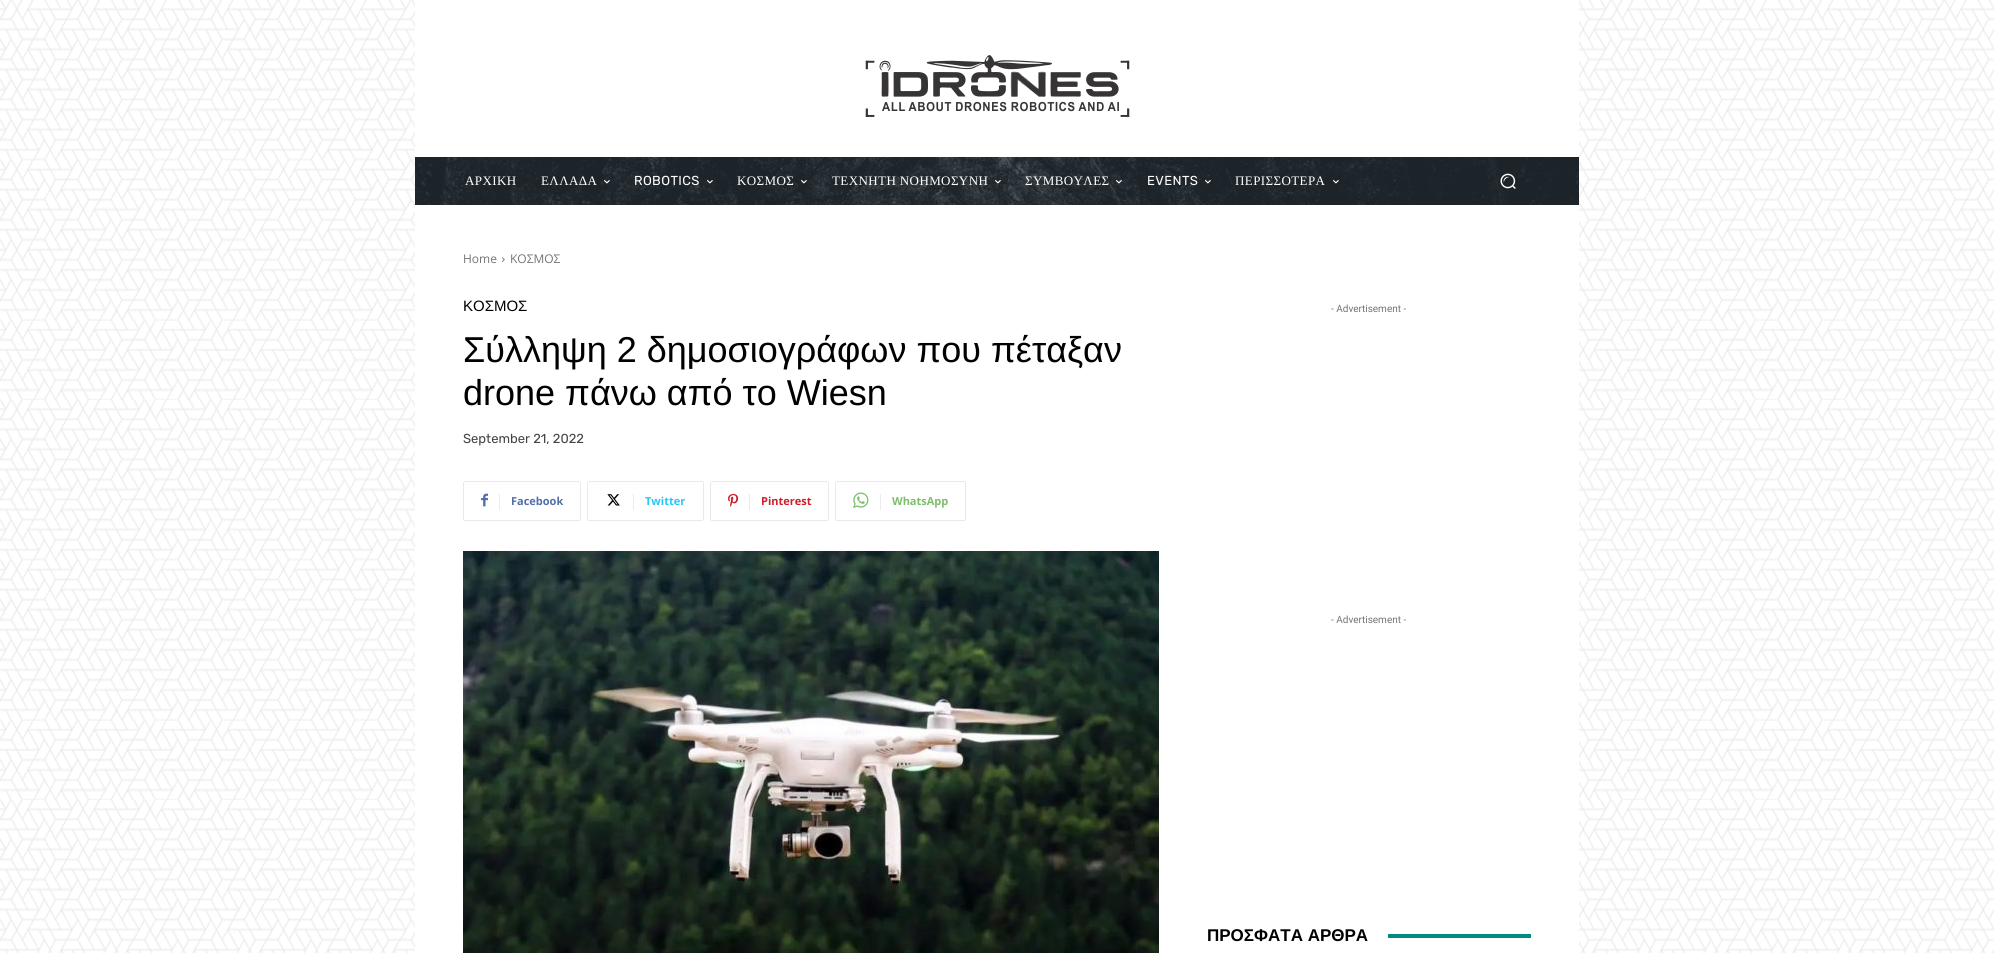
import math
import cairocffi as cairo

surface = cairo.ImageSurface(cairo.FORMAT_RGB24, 1994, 953)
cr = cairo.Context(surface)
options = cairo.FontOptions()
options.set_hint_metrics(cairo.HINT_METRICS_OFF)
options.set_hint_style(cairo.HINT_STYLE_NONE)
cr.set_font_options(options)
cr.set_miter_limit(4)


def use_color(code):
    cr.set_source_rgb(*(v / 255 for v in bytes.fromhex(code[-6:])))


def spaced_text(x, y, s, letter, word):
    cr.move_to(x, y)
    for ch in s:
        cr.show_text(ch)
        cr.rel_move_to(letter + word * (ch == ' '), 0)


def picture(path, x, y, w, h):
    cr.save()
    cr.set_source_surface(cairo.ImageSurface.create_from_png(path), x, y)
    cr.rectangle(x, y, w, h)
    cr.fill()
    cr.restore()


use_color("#ffffff")
cr.paint()
picture("img1.png", 0, 0, 1994, 953)
use_color("#ffffff")
cr.rectangle(415, 0, 1164, 953)
cr.fill()
picture("img2.png", 865, 55, 265, 62)
use_color("#232d35")
cr.rectangle(415, 157, 1164, 48)
cr.fill()
picture("img3.png", 415, 157, 1164, 48)
cr.select_font_face("Liberation Serif")
cr.set_font_size(13)
use_color("#ffffff")
spaced_text(465, 185, "ΑΡΧΙΚΗ", 0.4, 0)
spaced_text(541, 185, "ΕΛΛΑΔΑ", 0.4, 0)
picture("img4.png", 604, 180, 6, 4)
cr.select_font_face("Rubik")
spaced_text(634, 185, "ROBOTICS", 0.4, 0)
picture("img5.png", 707, 180, 6, 4)
cr.select_font_face("Liberation Serif")
spaced_text(737, 185, "ΚΟΣΜΟΣ", 0.4, 0)
picture("img6.png", 801, 180, 6, 4)
spaced_text(832, 185, "ΤΕΧΝΗΤΗ ΝΟΗΜΟΣΥΝΗ", 0.4, 0)
picture("img7.png", 995, 180, 6, 4)
spaced_text(1025, 185, "ΣΥΜΒΟΥΛΕΣ", 0.4, 0)
picture("img8.png", 1116, 180, 6, 4)
cr.select_font_face("Rubik")
spaced_text(1147, 185, "EVENTS", 0.4, 0)
picture("img9.png", 1205, 180, 6, 4)
cr.select_font_face("Liberation Serif")
spaced_text(1235, 185, "ΠΕΡΙΣΣΟΤΕΡΑ", 0.4, 0)
picture("img10.png", 1333, 180, 6, 4)
picture("img11.png", 1500, 173, 16, 16)
cr.select_font_face("Open Sans")
cr.set_font_size(12)
use_color("#747474")
cr.move_to(463, 263)
cr.show_text("Home")
picture("img12.png", 502, 257, 3, 5)
cr.move_to(510, 263)
cr.show_text("ΚΟΣΜΟΣ")
cr.select_font_face("Liberation Sans")
cr.set_font_size(15)
use_color("#000000")
cr.move_to(463, 311)
cr.show_text("ΚΟΣΜΟΣ")
cr.set_font_size(36)
cr.move_to(463, 362)
cr.show_text("Σύλληψη 2 δημοσιογράφων που πέταξαν")
cr.move_to(463, 405)
cr.show_text("drone πάνω από το Wiesn")
cr.select_font_face("Rubik")
cr.set_font_size(13)
use_color("#444444")
cr.move_to(463, 443)
cr.show_text("September 21, 2022")
use_color("#e9e9e9")
cr.rectangle(463, 482, 1, 38)
cr.fill()
picture("img13.png", 481, 493, 7, 14)
cr.rectangle(464, 481, 116, 1)
cr.fill()
cr.rectangle(580, 482, 1, 38)
cr.fill()
cr.rectangle(464, 520, 116, 1)
cr.fill()
use_color("#ebebeb")
cr.rectangle(499, 494, 1, 16)
cr.fill()
cr.select_font_face("Open Sans", cairo.FONT_SLANT_NORMAL, cairo.FONT_WEIGHT_BOLD)
cr.set_font_size(11)
use_color("#516eab")
cr.move_to(511, 505)
cr.show_text("Facebook")
use_color("#e9e9e9")
cr.rectangle(587, 482, 1, 38)
cr.fill()
picture("img14.png", 607, 494, 13, 12)
cr.rectangle(588, 481, 115, 1)
cr.fill()
cr.rectangle(703, 482, 1, 38)
cr.fill()
cr.rectangle(588, 520, 115, 1)
cr.fill()
use_color("#ebebeb")
cr.rectangle(633, 494, 1, 16)
cr.fill()
use_color("#29c5f6")
cr.move_to(645, 505)
cr.show_text("Twitter")
use_color("#e9e9e9")
cr.rectangle(710, 482, 1, 38)
cr.fill()
picture("img15.png", 728, 493, 11, 14)
cr.rectangle(711, 481, 117, 1)
cr.fill()
cr.rectangle(828, 482, 1, 38)
cr.fill()
cr.rectangle(711, 520, 117, 1)
cr.fill()
use_color("#ebebeb")
cr.rectangle(749, 494, 1, 16)
cr.fill()
use_color("#ca212a")
cr.move_to(761, 505)
cr.show_text("Pinterest")
use_color("#e9e9e9")
cr.rectangle(835, 482, 1, 38)
cr.fill()
picture("img16.png", 853, 492, 16, 16)
cr.rectangle(836, 481, 129, 1)
cr.fill()
cr.rectangle(965, 482, 1, 38)
cr.fill()
cr.rectangle(836, 520, 129, 1)
cr.fill()
use_color("#ebebeb")
cr.rectangle(880, 494, 1, 16)
cr.fill()
use_color("#7bbf6a")
cr.move_to(892, 505)
cr.show_text("WhatsApp")
picture("img17.png", 463, 551, 696, 402)
cr.select_font_face("Roboto")
cr.set_font_size(10)
use_color("#747474")
cr.move_to(1331, 312)
cr.show_text("- Advertisement -")
cr.move_to(1331, 623)
cr.show_text("- Advertisement -")
cr.select_font_face("Liberation Sans", cairo.FONT_SLANT_NORMAL, cairo.FONT_WEIGHT_BOLD)
cr.set_font_size(17)
use_color("#000000")
cr.move_to(1207, 941)
cr.show_text("ΠΡΟΣΦΑΤΑ ΑΡΘΡΑ")
use_color("#008d7f")
cr.rectangle(1388, 934, 143, 4)
cr.fill()
surface.write_to_png("result.png")
